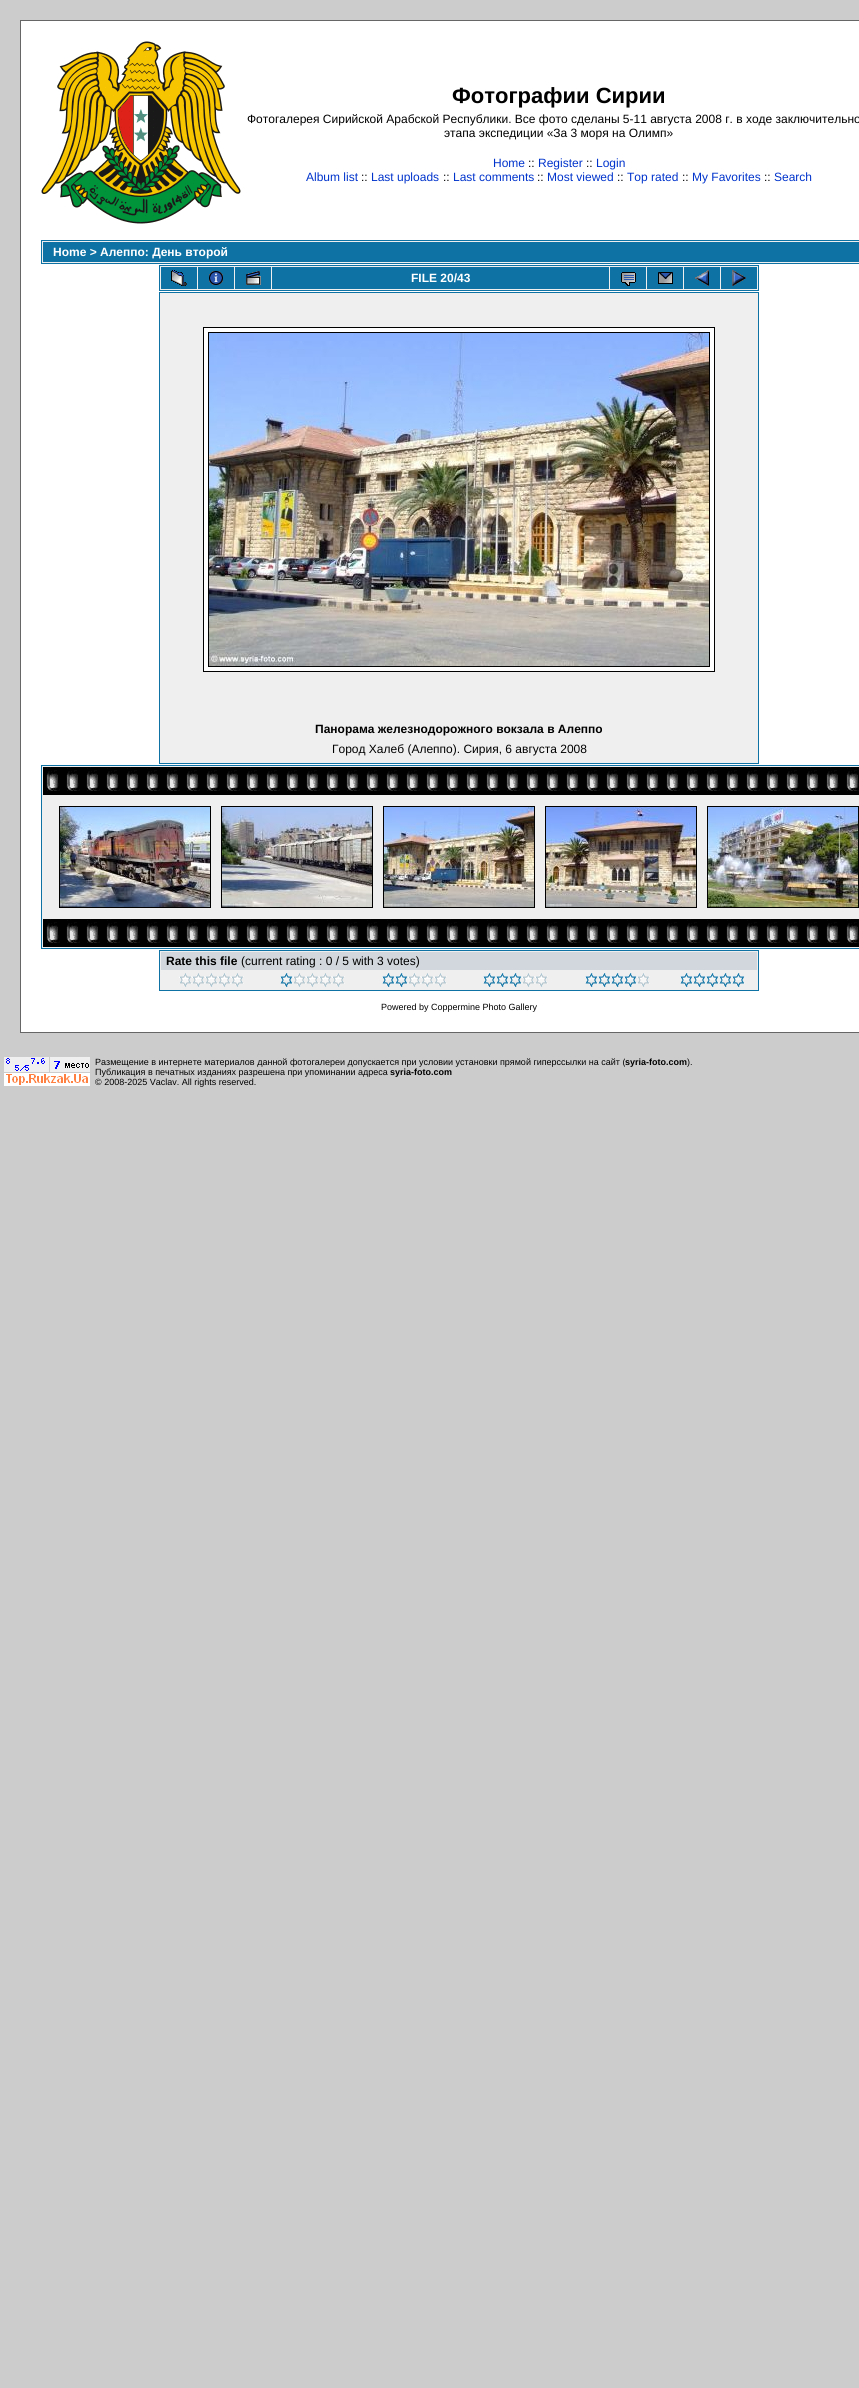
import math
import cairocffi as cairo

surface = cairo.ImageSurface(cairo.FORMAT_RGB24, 859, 2388)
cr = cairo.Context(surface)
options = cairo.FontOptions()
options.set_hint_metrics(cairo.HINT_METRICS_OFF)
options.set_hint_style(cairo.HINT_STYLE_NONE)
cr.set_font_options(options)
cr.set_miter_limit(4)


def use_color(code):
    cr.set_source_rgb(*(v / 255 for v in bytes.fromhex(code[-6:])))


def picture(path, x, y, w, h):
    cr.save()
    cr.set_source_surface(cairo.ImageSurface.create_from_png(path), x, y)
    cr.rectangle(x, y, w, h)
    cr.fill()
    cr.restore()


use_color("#cccccc")
cr.paint()
use_color("#ffffff")
cr.rectangle(20.5, 20.5, 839, 1012)
cr.fill_preserve()
use_color("#666666")
cr.set_line_width(1)
cr.stroke()
picture("img1.png", 41, 41, 200, 183)
cr.select_font_face("Liberation Sans", cairo.FONT_SLANT_NORMAL, cairo.FONT_WEIGHT_BOLD)
cr.set_font_size(22)
use_color("#000000")
cr.move_to(452, 103)
cr.show_text("Фотографии Сирии")
cr.select_font_face("Liberation Sans")
cr.set_font_size(12)
cr.move_to(247, 123)
cr.show_text("Фотогалерея Сирийской Арабской Республики. Все фото сделаны 5-11 августа 2008 г. в ходе заключительно")
cr.move_to(444, 137)
cr.show_text("этапа экспедиции «За 3 моря на Олимп»")
use_color("#0033cc")
cr.move_to(493, 167)
cr.show_text("Home")
use_color("#000000")
cr.move_to(528, 167)
cr.show_text("::")
use_color("#0033cc")
cr.move_to(538, 167)
cr.show_text("Register")
use_color("#000000")
cr.move_to(586, 167)
cr.show_text("::")
use_color("#0033cc")
cr.move_to(596, 167)
cr.show_text("Login")
cr.move_to(306, 181)
cr.show_text("Album list")
use_color("#000000")
cr.move_to(361, 181)
cr.show_text("::")
use_color("#0033cc")
cr.move_to(371, 181)
cr.show_text("Last uploads")
use_color("#000000")
cr.move_to(443, 181)
cr.show_text("::")
use_color("#0033cc")
cr.move_to(453, 181)
cr.show_text("Last comments")
use_color("#000000")
cr.move_to(537, 181)
cr.show_text("::")
use_color("#0033cc")
cr.move_to(547, 181)
cr.show_text("Most viewed")
use_color("#000000")
cr.move_to(617, 181)
cr.show_text("::")
use_color("#0033cc")
cr.move_to(627, 181)
cr.show_text("Top rated")
use_color("#000000")
cr.move_to(682, 181)
cr.show_text("::")
use_color("#0033cc")
cr.move_to(692, 181)
cr.show_text("My Favorites")
use_color("#000000")
cr.move_to(764, 181)
cr.show_text("::")
use_color("#0033cc")
cr.move_to(774, 181)
cr.show_text("Search")
use_color("#efefef")
cr.rectangle(41.5, 240.5, 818, 23)
cr.fill_preserve()
use_color("#0e72a4")
cr.stroke()
cr.rectangle(43, 242, 816, 20)
cr.fill()
cr.select_font_face("Liberation Sans", cairo.FONT_SLANT_NORMAL, cairo.FONT_WEIGHT_BOLD)
use_color("#ffffff")
cr.move_to(53, 256)
cr.show_text("Home > Алеппо: День второй")
use_color("#efefef")
cr.rectangle(159.5, 265.5, 599, 25)
cr.fill_preserve()
use_color("#0e72a4")
cr.stroke()
cr.rectangle(161, 267, 36, 22)
cr.fill()
picture("img2.png", 171, 270, 16, 16)
cr.rectangle(198, 267, 36, 22)
cr.fill()
picture("img3.png", 209, 271, 14, 14)
cr.rectangle(235, 267, 36, 22)
cr.fill()
picture("img4.png", 246, 271, 15, 14)
cr.rectangle(272, 267, 337, 22)
cr.fill()
use_color("#ffffff")
cr.move_to(411, 282)
cr.show_text("FILE 20/43")
use_color("#0e72a4")
cr.rectangle(610, 267, 36, 22)
cr.fill()
picture("img5.png", 621, 272, 15, 14)
cr.rectangle(647, 267, 36, 22)
cr.fill()
picture("img6.png", 658, 272, 15, 12)
cr.rectangle(684, 267, 36, 22)
cr.fill()
picture("img7.png", 695, 270, 14, 16)
cr.rectangle(721, 267, 36, 22)
cr.fill()
picture("img8.png", 732, 270, 14, 16)
use_color("#efefef")
cr.rectangle(159.5, 292.5, 599, 471)
cr.fill_preserve()
use_color("#0e72a4")
cr.stroke()
use_color("#ffffff")
cr.rectangle(203.5, 327.5, 511, 344)
cr.fill_preserve()
use_color("#000000")
cr.stroke()
cr.rectangle(208.5, 332.5, 501, 334)
cr.stroke()
picture("img9.png", 209, 333, 500, 333)
cr.move_to(315, 733)
cr.show_text("Панорама железнодорожного вокзала в Алеппо")
cr.select_font_face("Liberation Sans")
cr.move_to(332, 753)
cr.show_text("Город Халеб (Алеппо). Сирия, 6 августа 2008")
use_color("#efefef")
cr.rectangle(41.5, 765.5, 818, 183)
cr.fill_preserve()
use_color("#0e72a4")
cr.stroke()
picture("img10.png", 43, 767, 816, 28)
cr.rectangle(59.5, 806.5, 151, 101)
use_color("#000000")
cr.stroke()
picture("img11.png", 60, 807, 150, 100)
cr.rectangle(221.5, 806.5, 151, 101)
cr.stroke()
picture("img12.png", 222, 807, 150, 100)
cr.rectangle(383.5, 806.5, 151, 101)
cr.stroke()
picture("img13.png", 384, 807, 150, 100)
cr.rectangle(545.5, 806.5, 151, 101)
cr.stroke()
picture("img14.png", 546, 807, 150, 100)
cr.rectangle(707.5, 806.5, 151, 101)
cr.stroke()
picture("img15.png", 708, 807, 150, 100)
picture("img10.png", 43, 919, 816, 28)
use_color("#efefef")
cr.rectangle(159.5, 950.5, 599, 40)
cr.fill_preserve()
use_color("#0e72a4")
cr.stroke()
use_color("#d1d7dc")
cr.rectangle(161, 952, 596, 18)
cr.fill()
cr.select_font_face("Liberation Sans", cairo.FONT_SLANT_NORMAL, cairo.FONT_WEIGHT_BOLD)
use_color("#000000")
cr.move_to(166, 965)
cr.show_text("Rate this file")
cr.select_font_face("Liberation Sans")
cr.move_to(241, 965)
cr.show_text("(current rating : 0 / 5 with 3 votes)")
picture("img16.png", 179, 973, 65, 14)
picture("img17.png", 280, 973, 65, 14)
picture("img18.png", 382, 973, 65, 14)
picture("img19.png", 483, 973, 65, 14)
picture("img20.png", 585, 973, 65, 14)
picture("img21.png", 680, 973, 65, 14)
cr.set_font_size(9)
cr.move_to(381, 1010)
cr.show_text("Powered by Coppermine Photo Gallery")
picture("img22.png", 4, 1057, 86, 29)
cr.move_to(95, 1065)
cr.show_text("Размещение в интернете материалов данной фотогалереи допускается при условии установки прямой гиперссылки на сайт (")
cr.select_font_face("Liberation Sans", cairo.FONT_SLANT_NORMAL, cairo.FONT_WEIGHT_BOLD)
cr.move_to(625, 1065)
cr.show_text("syria-foto.com")
cr.select_font_face("Liberation Sans")
cr.move_to(687, 1065)
cr.show_text(").")
cr.move_to(95, 1075)
cr.show_text("Публикация в печатных изданиях разрешена при упоминании адреса")
cr.select_font_face("Liberation Sans", cairo.FONT_SLANT_NORMAL, cairo.FONT_WEIGHT_BOLD)
cr.move_to(390, 1075)
cr.show_text("syria-foto.com")
cr.select_font_face("Liberation Sans")
cr.move_to(95, 1085)
cr.show_text("© 2008-2025 Vaclav. All rights reserved.")
surface.write_to_png("result.png")
